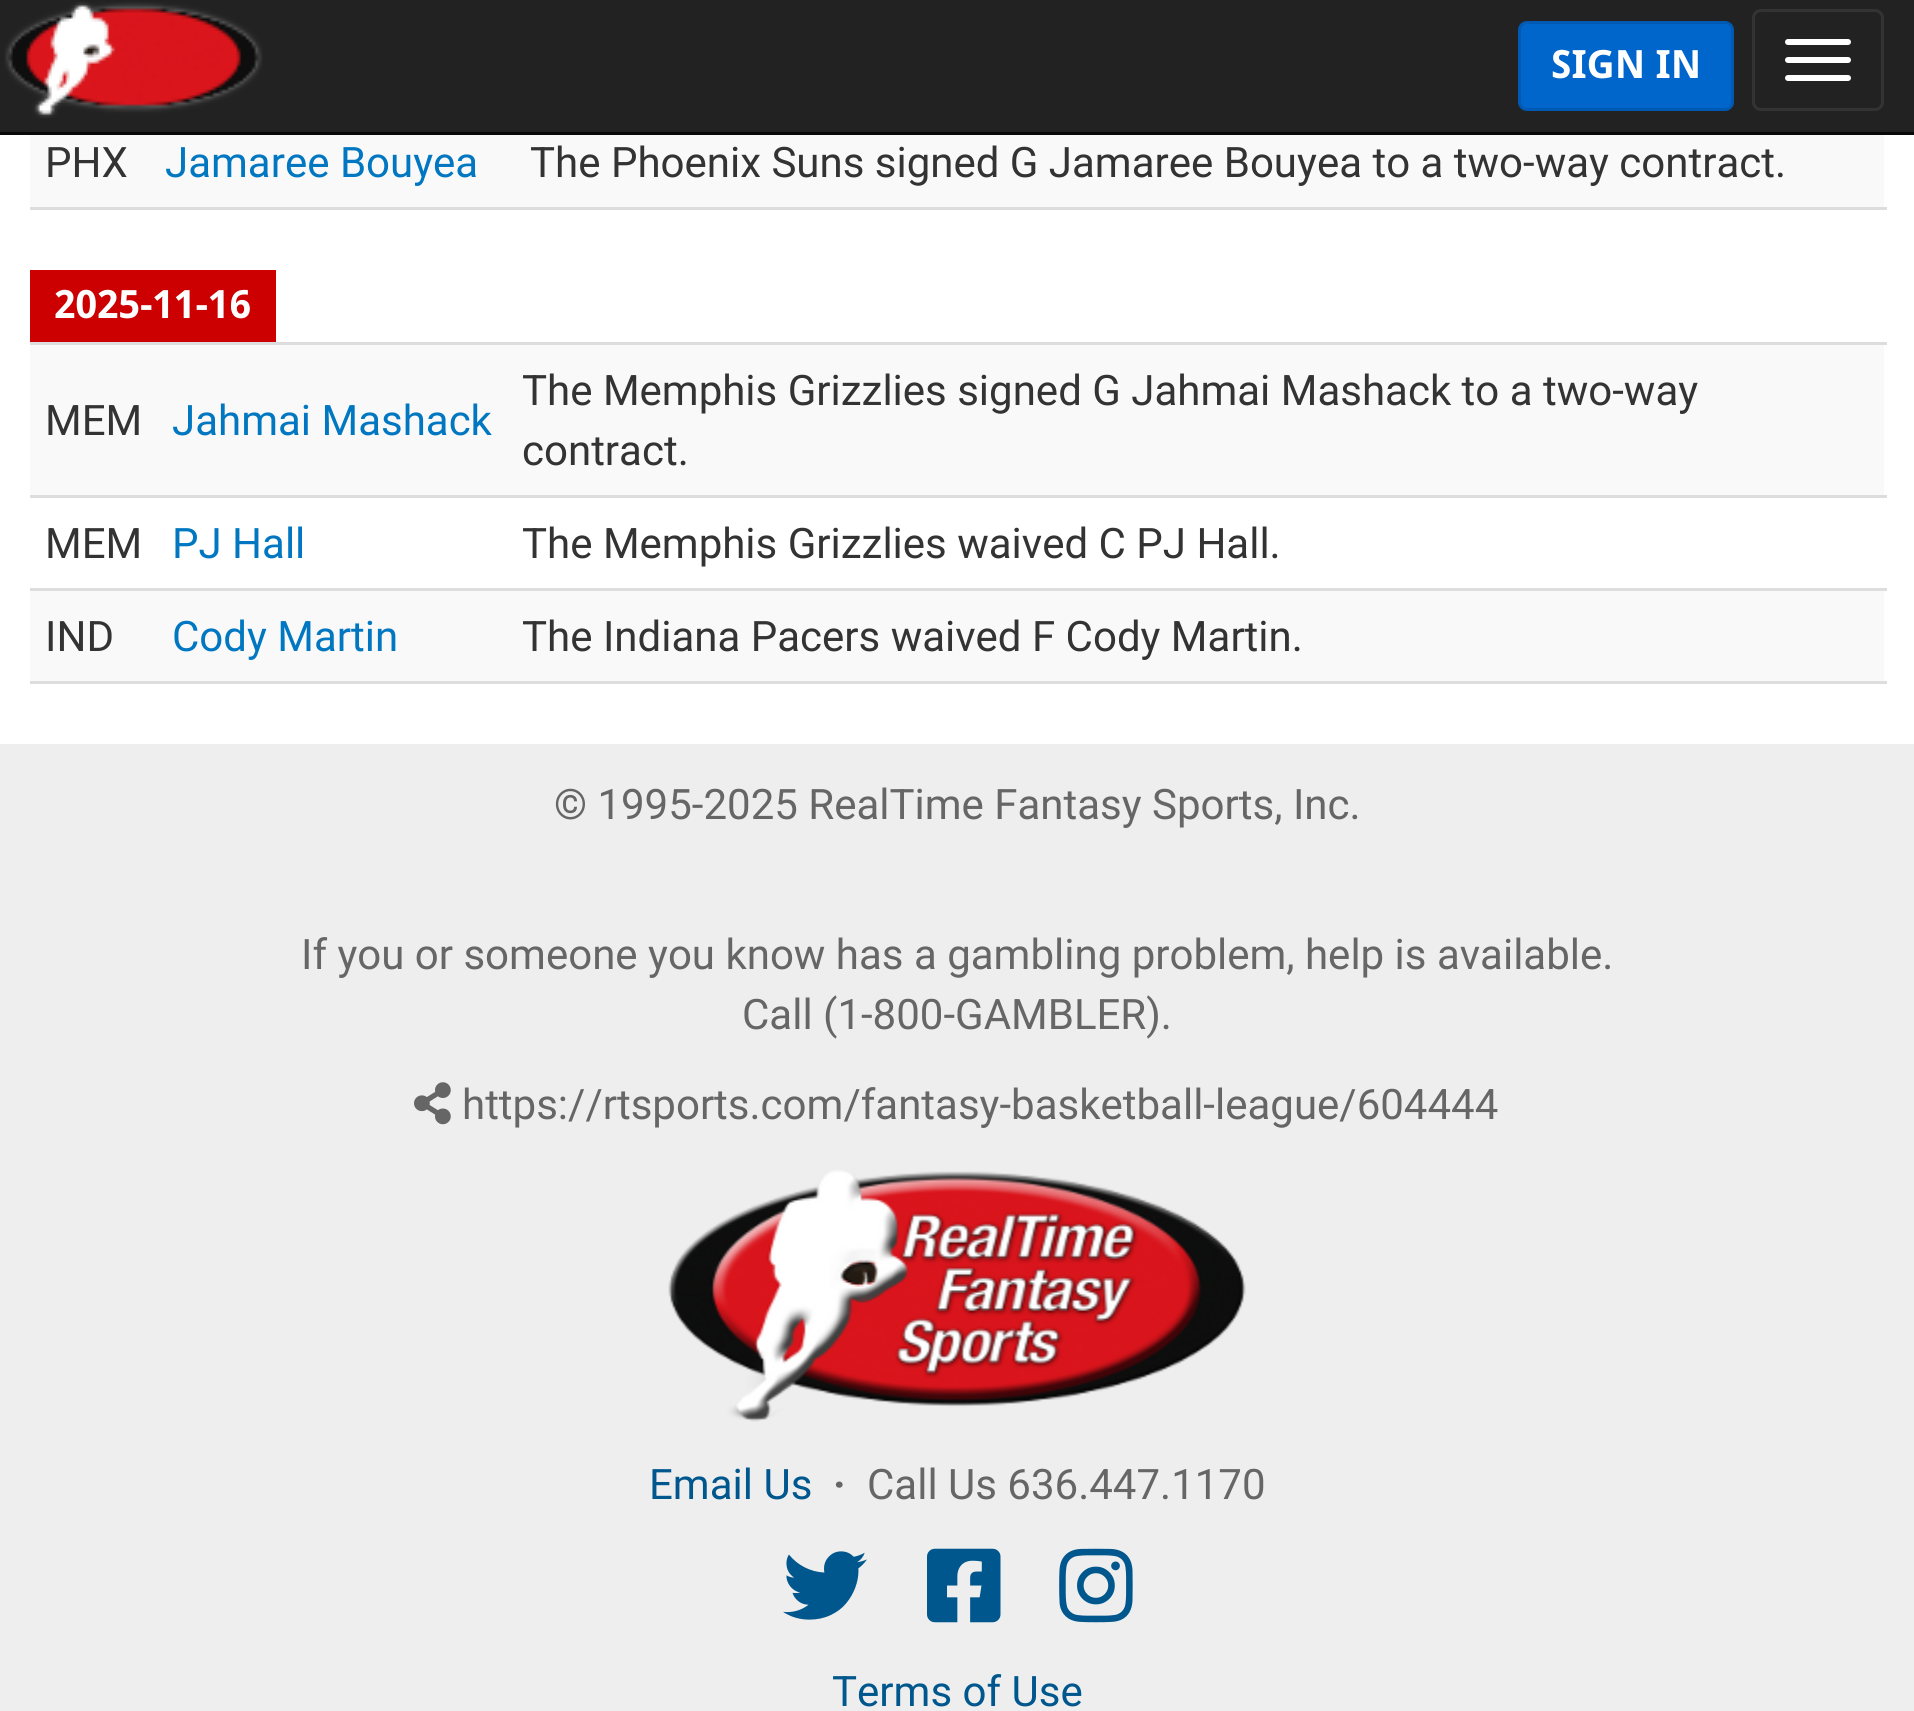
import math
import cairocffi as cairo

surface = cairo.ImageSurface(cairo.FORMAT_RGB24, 1914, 1711)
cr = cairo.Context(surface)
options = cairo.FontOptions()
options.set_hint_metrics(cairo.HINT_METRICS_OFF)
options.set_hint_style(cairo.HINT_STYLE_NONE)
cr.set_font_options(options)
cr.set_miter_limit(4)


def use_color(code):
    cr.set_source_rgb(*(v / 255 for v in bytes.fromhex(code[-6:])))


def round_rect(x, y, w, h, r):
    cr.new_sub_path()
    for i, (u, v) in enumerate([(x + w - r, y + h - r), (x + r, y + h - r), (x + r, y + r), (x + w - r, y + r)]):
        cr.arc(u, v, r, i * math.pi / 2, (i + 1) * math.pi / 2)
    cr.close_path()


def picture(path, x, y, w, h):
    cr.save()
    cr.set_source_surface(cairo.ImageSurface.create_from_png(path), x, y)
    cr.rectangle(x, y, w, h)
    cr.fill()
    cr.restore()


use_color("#eeeeee")
cr.paint()
use_color("#222222")
cr.rectangle(0, 0, 1914, 132)
cr.fill()
use_color("#080808")
cr.rectangle(0, 132, 1914, 3)
cr.fill()
picture("img1.png", 4, 2, 259, 116)
use_color("#0066cc")
round_rect(1519.5, 22.5, 213, 87, 7.5)
cr.fill_preserve()
use_color("#0059b3")
cr.set_line_width(3)
cr.stroke()
cr.select_font_face("Droid Sans", cairo.FONT_SLANT_NORMAL, cairo.FONT_WEIGHT_BOLD)
cr.set_font_size(39)
use_color("#ffffff")
cr.move_to(1551, 78)
cr.show_text("SIGN IN")
round_rect(1753.5, 10.5, 129, 99, 7.5)
use_color("#333333")
cr.stroke()
use_color("#ffffff")
round_rect(1785, 39, 66, 6, 3)
cr.fill()
round_rect(1785, 57, 66, 6, 3)
cr.fill()
round_rect(1785, 75, 66, 6, 3)
cr.fill()
cr.rectangle(0, 135, 1914, 609)
cr.fill()
use_color("#f9f9f9")
cr.rectangle(30, 135, 1854, 72)
cr.fill()
cr.select_font_face("Roboto")
cr.set_font_size(42)
use_color("#333333")
cr.move_to(45, 177)
cr.show_text("PHX")
use_color("#0077c0")
cr.move_to(165, 177)
cr.show_text("Jamaree Bouyea")
use_color("#dddddd")
cr.rectangle(30, 207, 1857, 3)
cr.fill()
use_color("#333333")
cr.move_to(530, 177)
cr.show_text("The Phoenix Suns signed G Jamaree Bouyea to a two-way contract.")
use_color("#cc0000")
cr.rectangle(30, 270, 246, 72)
cr.fill()
cr.select_font_face("Droid Sans", cairo.FONT_SLANT_NORMAL, cairo.FONT_WEIGHT_BOLD)
cr.set_font_size(39)
use_color("#ffffff")
cr.move_to(54, 318)
cr.show_text("2025-11-16")
use_color("#f9f9f9")
cr.rectangle(30, 345, 1854, 150)
cr.fill()
cr.select_font_face("Roboto")
cr.set_font_size(42)
use_color("#333333")
cr.move_to(45, 435)
cr.show_text("MEM")
use_color("#0077c0")
cr.move_to(172, 435)
cr.show_text("Jahmai Mashack")
use_color("#dddddd")
cr.rectangle(30, 342, 1857, 3)
cr.fill()
use_color("#333333")
cr.move_to(522, 405)
cr.show_text("The Memphis Grizzlies signed G Jahmai Mashack to a two-way")
cr.move_to(522, 465)
cr.show_text("contract.")
cr.move_to(45, 558)
cr.show_text("MEM")
use_color("#0077c0")
cr.move_to(172, 558)
cr.show_text("PJ Hall")
use_color("#dddddd")
cr.rectangle(30, 495, 1857, 3)
cr.fill()
use_color("#333333")
cr.move_to(522, 558)
cr.show_text("The Memphis Grizzlies waived C PJ Hall.")
use_color("#f9f9f9")
cr.rectangle(30, 591, 1854, 90)
cr.fill()
use_color("#333333")
cr.move_to(45, 651)
cr.show_text("IND")
use_color("#0077c0")
cr.move_to(172, 651)
cr.show_text("Cody Martin")
use_color("#dddddd")
cr.rectangle(30, 588, 1857, 3)
cr.fill()
cr.rectangle(30, 681, 1857, 3)
cr.fill()
use_color("#333333")
cr.move_to(522, 651)
cr.show_text("The Indiana Pacers waived F Cody Martin.")
use_color("#666666")
cr.move_to(554, 819)
cr.show_text("© 1995-2025 RealTime Fantasy Sports, Inc.")
cr.move_to(301, 969)
cr.show_text("If you or someone you know has a gambling problem, help is available.")
cr.move_to(742, 1029)
cr.show_text("Call (1-800-GAMBLER).")
picture("img2.png", 414, 1082, 37, 43)
cr.move_to(462, 1119)
cr.show_text("https://rtsports.com/fantasy-basketball-league/604444")
picture("img3.png", 668, 1170, 578, 252)
use_color("#00578d")
cr.move_to(649, 1499)
cr.show_text("Email Us")
cr.select_font_face("Roboto", cairo.FONT_SLANT_NORMAL, cairo.FONT_WEIGHT_BOLD)
use_color("#666666")
cr.move_to(833, 1499)
cr.show_text("·")
cr.select_font_face("Roboto")
cr.move_to(867, 1499)
cr.show_text("Call Us 636.447.1170")
picture("img4.png", 783, 1551, 84, 69)
picture("img5.png", 927, 1548, 74, 75)
picture("img6.png", 1059, 1548, 74, 75)
use_color("#00578d")
cr.move_to(832, 1706)
cr.show_text("Terms of Use")
surface.write_to_png("result.png")
